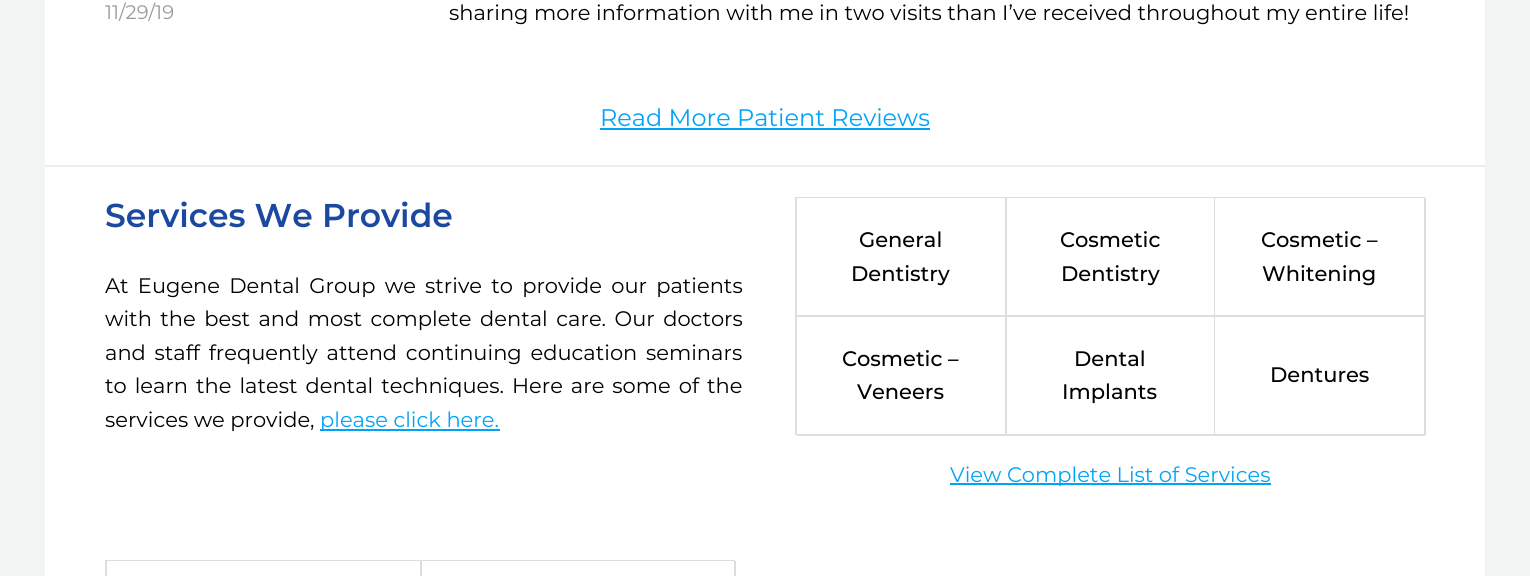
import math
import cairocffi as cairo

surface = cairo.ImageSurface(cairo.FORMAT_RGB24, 1530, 576)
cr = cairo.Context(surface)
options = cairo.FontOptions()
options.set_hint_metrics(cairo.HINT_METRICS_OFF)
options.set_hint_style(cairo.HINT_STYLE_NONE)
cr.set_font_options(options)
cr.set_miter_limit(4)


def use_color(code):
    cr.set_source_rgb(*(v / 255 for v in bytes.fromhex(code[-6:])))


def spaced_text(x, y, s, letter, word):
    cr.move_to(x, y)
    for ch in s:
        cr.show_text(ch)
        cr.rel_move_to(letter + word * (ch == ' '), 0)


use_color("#f2f3f3")
cr.paint()
use_color("#ffffff")
cr.rectangle(45, 0, 1440, 576)
cr.fill()
use_color("#ededed")
cr.rectangle(45, 165, 1440, 2)
cr.fill()
cr.select_font_face("Montserrat")
cr.set_font_size(19.5)
use_color("#999999")
cr.move_to(105, 19)
cr.show_text("11/29/19")
cr.set_font_size(21)
use_color("#000000")
cr.move_to(449, 20)
cr.show_text("sharing more information with me in two visits than I’ve received throughout my entire life!")
cr.set_font_size(24)
use_color("#00a4f7")
cr.move_to(600, 126)
cr.show_text("Read More Patient Reviews")
cr.rectangle(600, 128, 330, 2)
cr.fill()
cr.select_font_face("Montserrat SemiBold")
cr.set_font_size(33)
use_color("#1b499f")
cr.move_to(105, 227)
cr.show_text("Services We Provide")
cr.select_font_face("Montserrat")
cr.set_font_size(21)
use_color("#000000")
spaced_text(105, 293, "At Eugene Dental Group we strive to provide our patients", 0, 3.75)
spaced_text(105, 326, "with the best and most complete dental care. Our doctors", 0, 3)
spaced_text(105, 360, "and staff frequently attend continuing education seminars", 0, 3.25)
spaced_text(105, 393, "to learn the latest dental techniques. Here are some of the", 0, 2.5)
cr.move_to(105, 427)
cr.show_text("services we provide,")
use_color("#00a4f7")
cr.rectangle(320, 429, 180, 2)
cr.fill()
cr.move_to(320, 427)
cr.show_text("please click here.")
use_color("#dedede")
cr.rectangle(795, 197, 630, 1)
cr.fill()
cr.rectangle(795, 197, 2, 238)
cr.fill()
cr.rectangle(1005, 198, 2, 237)
cr.fill()
cr.rectangle(797, 315, 210, 2)
cr.fill()
cr.select_font_face("Montserrat Medium")
use_color("#000000")
cr.move_to(859, 247)
cr.show_text("General")
cr.move_to(851, 281)
cr.show_text("Dentistry")
use_color("#dedede")
cr.rectangle(1214, 198, 1, 237)
cr.fill()
cr.rectangle(1007, 315, 208, 2)
cr.fill()
use_color("#000000")
cr.move_to(1060, 247)
cr.show_text("Cosmetic")
cr.move_to(1061, 281)
cr.show_text("Dentistry")
use_color("#dedede")
cr.rectangle(1424, 198, 2, 237)
cr.fill()
cr.rectangle(1215, 315, 210, 2)
cr.fill()
use_color("#000000")
cr.move_to(1261, 247)
cr.show_text("Cosmetic –")
cr.move_to(1262, 281)
cr.show_text("Whitening")
use_color("#dedede")
cr.rectangle(797, 434, 628, 2)
cr.fill()
use_color("#000000")
cr.move_to(842, 366)
cr.show_text("Cosmetic –")
cr.move_to(857, 399)
cr.show_text("Veneers")
cr.move_to(1074, 366)
cr.show_text("Dental")
cr.move_to(1062, 399)
cr.show_text("Implants")
cr.move_to(1270, 382)
cr.show_text("Dentures")
use_color("#00a4f7")
cr.rectangle(950, 483, 321, 2)
cr.fill()
cr.select_font_face("Montserrat")
cr.move_to(950, 482)
cr.show_text("View Complete List of Services")
use_color("#dedede")
cr.rectangle(105, 560, 630, 1)
cr.fill()
cr.rectangle(105, 560, 2, 16)
cr.fill()
cr.rectangle(420, 561, 2, 15)
cr.fill()
cr.rectangle(734, 561, 2, 15)
cr.fill()
surface.write_to_png("result.png")
